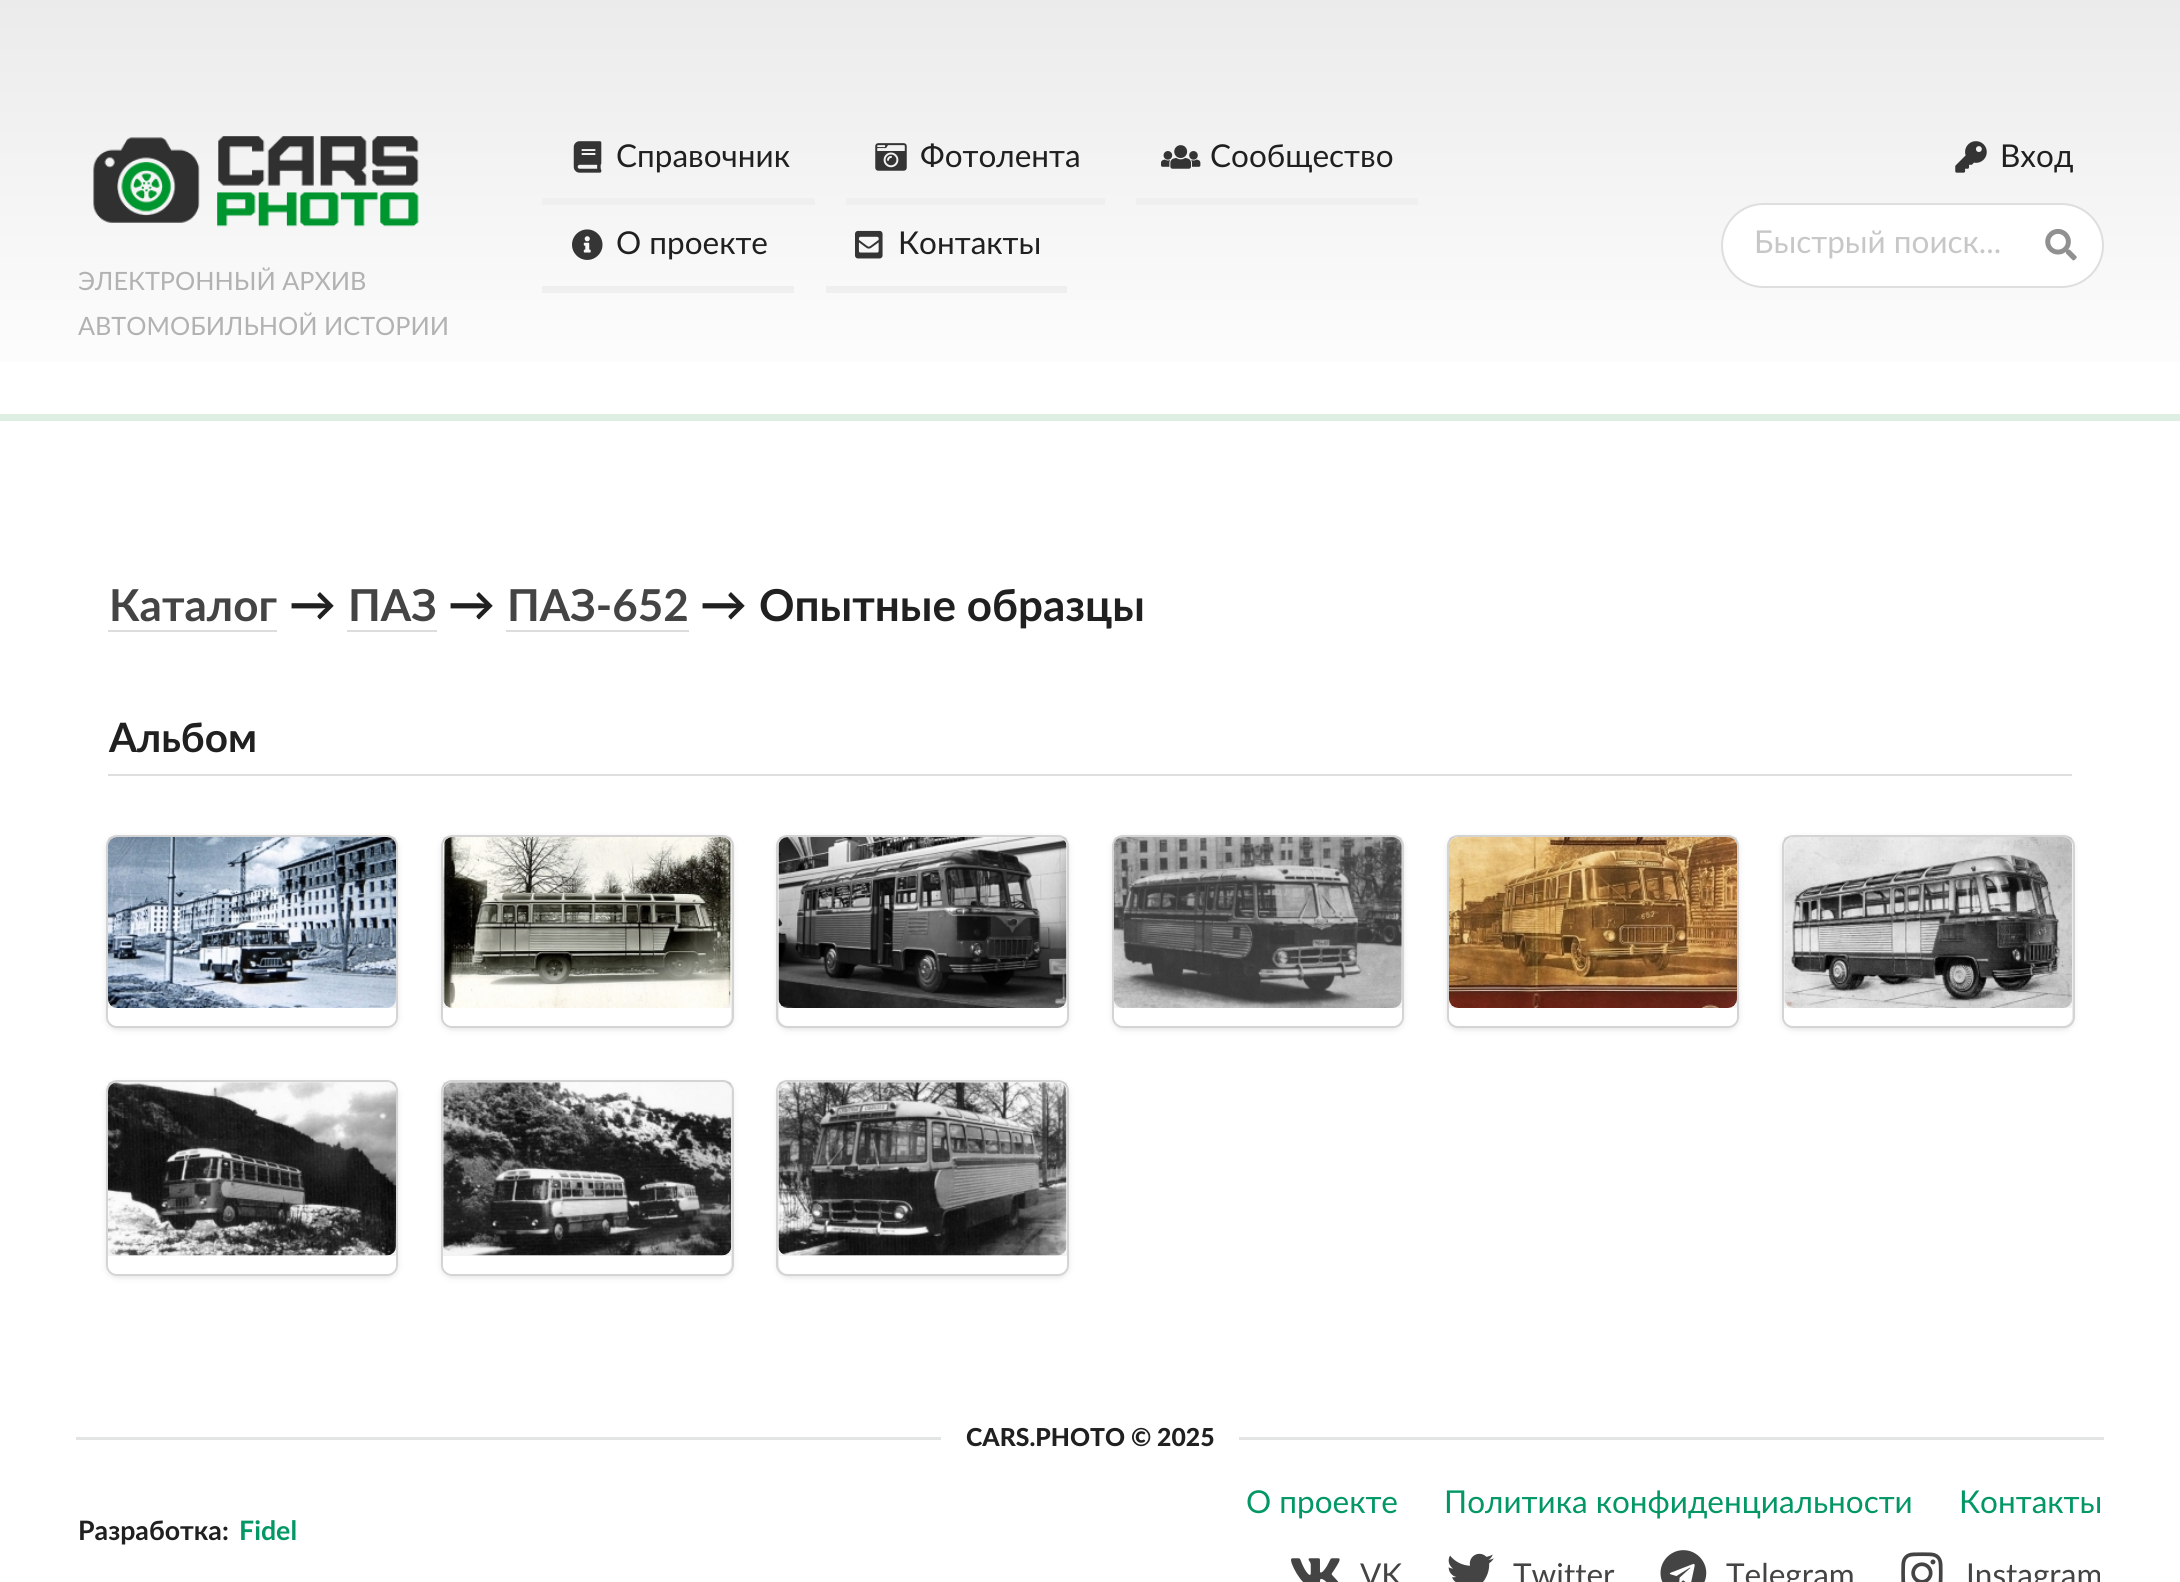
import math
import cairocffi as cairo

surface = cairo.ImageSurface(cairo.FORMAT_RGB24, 2180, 1582)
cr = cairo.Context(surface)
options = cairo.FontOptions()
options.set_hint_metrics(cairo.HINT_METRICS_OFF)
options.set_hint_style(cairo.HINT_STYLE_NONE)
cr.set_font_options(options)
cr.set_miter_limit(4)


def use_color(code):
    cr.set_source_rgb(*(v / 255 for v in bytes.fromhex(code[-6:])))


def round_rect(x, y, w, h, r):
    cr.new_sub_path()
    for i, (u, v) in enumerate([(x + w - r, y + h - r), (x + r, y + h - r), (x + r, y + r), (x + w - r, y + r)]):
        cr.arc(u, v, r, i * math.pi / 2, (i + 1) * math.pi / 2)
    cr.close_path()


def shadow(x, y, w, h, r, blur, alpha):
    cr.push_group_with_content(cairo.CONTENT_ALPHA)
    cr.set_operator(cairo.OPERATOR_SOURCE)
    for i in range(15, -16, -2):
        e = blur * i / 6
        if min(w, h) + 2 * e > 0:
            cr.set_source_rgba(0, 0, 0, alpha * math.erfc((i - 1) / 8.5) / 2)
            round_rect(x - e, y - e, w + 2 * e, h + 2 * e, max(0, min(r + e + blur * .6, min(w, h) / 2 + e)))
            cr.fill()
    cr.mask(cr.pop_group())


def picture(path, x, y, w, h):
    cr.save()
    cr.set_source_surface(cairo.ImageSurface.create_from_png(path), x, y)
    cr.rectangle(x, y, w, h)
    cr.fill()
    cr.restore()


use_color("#ffffff")
cr.paint()
gradient = cairo.LinearGradient(1090, 0, 1090, 414)
gradient.add_color_stop_rgba(0, 0.922, 0.922, 0.922, 1)
gradient.add_color_stop_rgba(1, 1, 1, 1, 1)
cr.set_source(gradient)
cr.rectangle(0, 0, 2180, 362)
cr.fill()
use_color("#dcefe2")
cr.rectangle(0, 414, 2180, 7)
cr.fill()
use_color("#efefef")
cr.rectangle(542, 198, 273, 7)
cr.fill()
picture("img1.png", 573, 141, 29, 32)
cr.select_font_face("Lato")
cr.set_font_size(31.5)
use_color("#202020")
cr.move_to(616, 167)
cr.show_text("Справочник")
use_color("#efefef")
cr.rectangle(846, 198, 259, 7)
cr.fill()
picture("img2.png", 875, 143, 32, 28)
use_color("#202020")
cr.move_to(920, 167)
cr.show_text("Фотолента")
use_color("#efefef")
cr.rectangle(1136, 198, 282, 7)
cr.fill()
picture("img3.png", 1161, 145, 40, 24)
use_color("#202020")
cr.move_to(1210, 167)
cr.show_text("Сообщество")
use_color("#efefef")
cr.rectangle(542, 286, 252, 7)
cr.fill()
picture("img4.png", 572, 229, 31, 31)
use_color("#202020")
cr.move_to(616, 254)
cr.show_text("О проекте")
use_color("#efefef")
cr.rectangle(826, 286, 241, 7)
cr.fill()
picture("img5.png", 855, 230, 28, 29)
use_color("#202020")
cr.move_to(898, 254)
cr.show_text("Контакты")
picture("img6.png", 93, 136, 326, 91)
cr.set_font_size(25.25)
use_color("#b2b2b2")
cr.move_to(78, 290)
cr.show_text("ЭЛЕКТРОННЫЙ АРХИВ")
cr.move_to(78, 335)
cr.show_text("АВТОМОБИЛЬНОЙ ИСТОРИИ")
picture("img7.png", 1955, 141, 32, 32)
cr.set_font_size(31.5)
use_color("#202020")
cr.move_to(2000, 167)
cr.show_text("Вход")
use_color("#ffffff")
round_rect(1721, 203, 383, 85, 42.5)
cr.fill()
round_rect(1722, 204, 381, 83, 41.5)
cr.set_source_rgba(0.133, 0.141, 0.149, 0.15)
cr.stroke()
use_color("#c7c7c7")
cr.move_to(1754, 253)
cr.show_text("Быстрый поиск...")
picture("img8.png", 2045, 229, 32, 32)
cr.select_font_face("Lato", cairo.FONT_SLANT_NORMAL, cairo.FONT_WEIGHT_BOLD)
cr.set_font_size(44)
use_color("#444444")
cr.move_to(109, 621)
cr.show_text("Каталог")
use_color("#dddddd")
cr.rectangle(108, 630, 169, 2)
cr.fill()
cr.set_font_size(47)
use_color("#202020")
cr.move_to(289, 621)
cr.show_text("→")
cr.set_font_size(44)
use_color("#444444")
cr.move_to(348, 621)
cr.show_text("ПАЗ")
use_color("#dddddd")
cr.rectangle(347, 630, 90, 2)
cr.fill()
cr.set_font_size(47)
use_color("#202020")
cr.move_to(448, 621)
cr.show_text("→")
cr.set_font_size(44)
use_color("#444444")
cr.move_to(507, 621)
cr.show_text("ПАЗ-652")
use_color("#dddddd")
cr.rectangle(506, 630, 183, 2)
cr.fill()
cr.set_font_size(47)
use_color("#202020")
cr.move_to(700, 621)
cr.show_text("→")
cr.set_font_size(44)
cr.move_to(759, 621)
cr.show_text("Опытные образцы")
use_color("#dedede")
cr.rectangle(108, 774, 1964, 2)
cr.fill()
cr.set_font_size(40.5)
use_color("#202020")
cr.move_to(109, 752)
cr.show_text("Альбом")
round_rect(107, 836, 290, 191, 10)
use_color("#d4d4d5")
cr.stroke()
use_color("#d4d4d5")
shadow(108, 839, 288, 189, 9, 3.5, 1)
use_color("#ffffff")
round_rect(108, 837, 288, 189, 9)
cr.fill()
cr.set_source_rgba(0, 0, 0, 0.05)
cr.rectangle(108, 837, 288, 171)
cr.fill()
picture("img9.png", 108, 837, 288, 171)
round_rect(442, 836, 291, 191, 10)
use_color("#d4d4d5")
cr.stroke()
use_color("#d4d4d5")
shadow(443, 839, 288, 189, 9, 3.5, 1)
use_color("#ffffff")
round_rect(443, 837, 288, 189, 9)
cr.fill()
cr.set_source_rgba(0, 0, 0, 0.05)
cr.rectangle(443, 837, 288, 171)
cr.fill()
picture("img10.png", 443, 837, 289, 171)
round_rect(777, 836, 291, 191, 10)
use_color("#d4d4d5")
cr.stroke()
use_color("#d4d4d5")
shadow(779, 839, 288, 189, 9, 3.5, 1)
use_color("#ffffff")
round_rect(779, 837, 288, 189, 9)
cr.fill()
cr.set_source_rgba(0, 0, 0, 0.05)
cr.rectangle(779, 837, 288, 171)
cr.fill()
picture("img11.png", 778, 837, 289, 171)
round_rect(1113, 836, 290, 191, 10)
use_color("#d4d4d5")
cr.stroke()
use_color("#d4d4d5")
shadow(1114, 839, 288, 189, 9, 3.5, 1)
use_color("#ffffff")
round_rect(1114, 837, 288, 189, 9)
cr.fill()
cr.set_source_rgba(0, 0, 0, 0.05)
cr.rectangle(1114, 837, 288, 171)
cr.fill()
picture("img12.png", 1113, 837, 289, 171)
round_rect(1448, 836, 290, 191, 10)
use_color("#d4d4d5")
cr.stroke()
use_color("#d4d4d5")
shadow(1449, 839, 288, 189, 9, 3.5, 1)
use_color("#ffffff")
round_rect(1449, 837, 288, 189, 9)
cr.fill()
cr.set_source_rgba(0, 0, 0, 0.05)
cr.rectangle(1449, 837, 288, 171)
cr.fill()
picture("img13.png", 1449, 837, 288, 171)
round_rect(1783, 836, 291, 191, 10)
use_color("#d4d4d5")
cr.stroke()
use_color("#d4d4d5")
shadow(1784, 839, 288, 189, 9, 3.5, 1)
use_color("#ffffff")
round_rect(1784, 837, 288, 189, 9)
cr.fill()
cr.set_source_rgba(0, 0, 0, 0.05)
cr.rectangle(1784, 837, 288, 171)
cr.fill()
picture("img14.png", 1784, 837, 288, 171)
round_rect(107, 1081, 290, 194, 10)
use_color("#d4d4d5")
cr.stroke()
use_color("#d4d4d5")
shadow(108, 1085, 288, 191, 9, 3.5, 1)
use_color("#ffffff")
round_rect(108, 1082, 288, 192, 9)
cr.fill()
cr.set_source_rgba(0, 0, 0, 0.05)
cr.rectangle(108, 1082, 288, 174)
cr.fill()
picture("img15.png", 108, 1082, 288, 174)
round_rect(442, 1081, 291, 194, 10)
use_color("#d4d4d5")
cr.stroke()
use_color("#d4d4d5")
shadow(443, 1085, 288, 191, 9, 3.5, 1)
use_color("#ffffff")
round_rect(443, 1082, 288, 192, 9)
cr.fill()
cr.set_source_rgba(0, 0, 0, 0.05)
cr.rectangle(443, 1082, 288, 174)
cr.fill()
picture("img16.png", 443, 1082, 289, 174)
round_rect(777, 1081, 291, 194, 10)
use_color("#d4d4d5")
cr.stroke()
use_color("#d4d4d5")
shadow(779, 1085, 288, 191, 9, 3.5, 1)
use_color("#ffffff")
round_rect(779, 1082, 288, 192, 9)
cr.fill()
cr.set_source_rgba(0, 0, 0, 0.05)
cr.rectangle(779, 1082, 288, 174)
cr.fill()
picture("img17.png", 778, 1082, 289, 174)
use_color("#e3e4e4")
cr.rectangle(76, 1437, 865, 3)
cr.fill()
cr.select_font_face("Lato Black")
cr.set_font_size(24.75)
use_color("#202020")
cr.move_to(966, 1446)
cr.show_text("CARS.PHOTO © 2025")
use_color("#e3e4e4")
cr.rectangle(1239, 1437, 865, 3)
cr.fill()
cr.select_font_face("Lato", cairo.FONT_SLANT_NORMAL, cairo.FONT_WEIGHT_BOLD)
cr.set_font_size(26.75)
use_color("#202020")
cr.move_to(78, 1540)
cr.show_text("Разработка:")
use_color("#029765")
cr.move_to(239, 1540)
cr.show_text("Fidel")
cr.select_font_face("Lato")
cr.set_font_size(31.5)
cr.move_to(1246, 1513)
cr.show_text("О проекте")
cr.move_to(1444, 1513)
cr.show_text("Политика конфиденциальности")
cr.move_to(1959, 1513)
cr.show_text("Контакты")
picture("img18.png", 1291, 1558, 49, 24)
use_color("#444444")
cr.move_to(1360, 1586)
cr.show_text("VK")
picture("img19.png", 1448, 1553, 46, 29)
cr.move_to(1513, 1586)
cr.show_text("Twitter")
picture("img20.png", 1660, 1550, 47, 32)
cr.move_to(1726, 1586)
cr.show_text("Telegram")
picture("img21.png", 1901, 1552, 42, 30)
cr.move_to(1966, 1586)
cr.show_text("Instagram")
surface.write_to_png("result.png")
